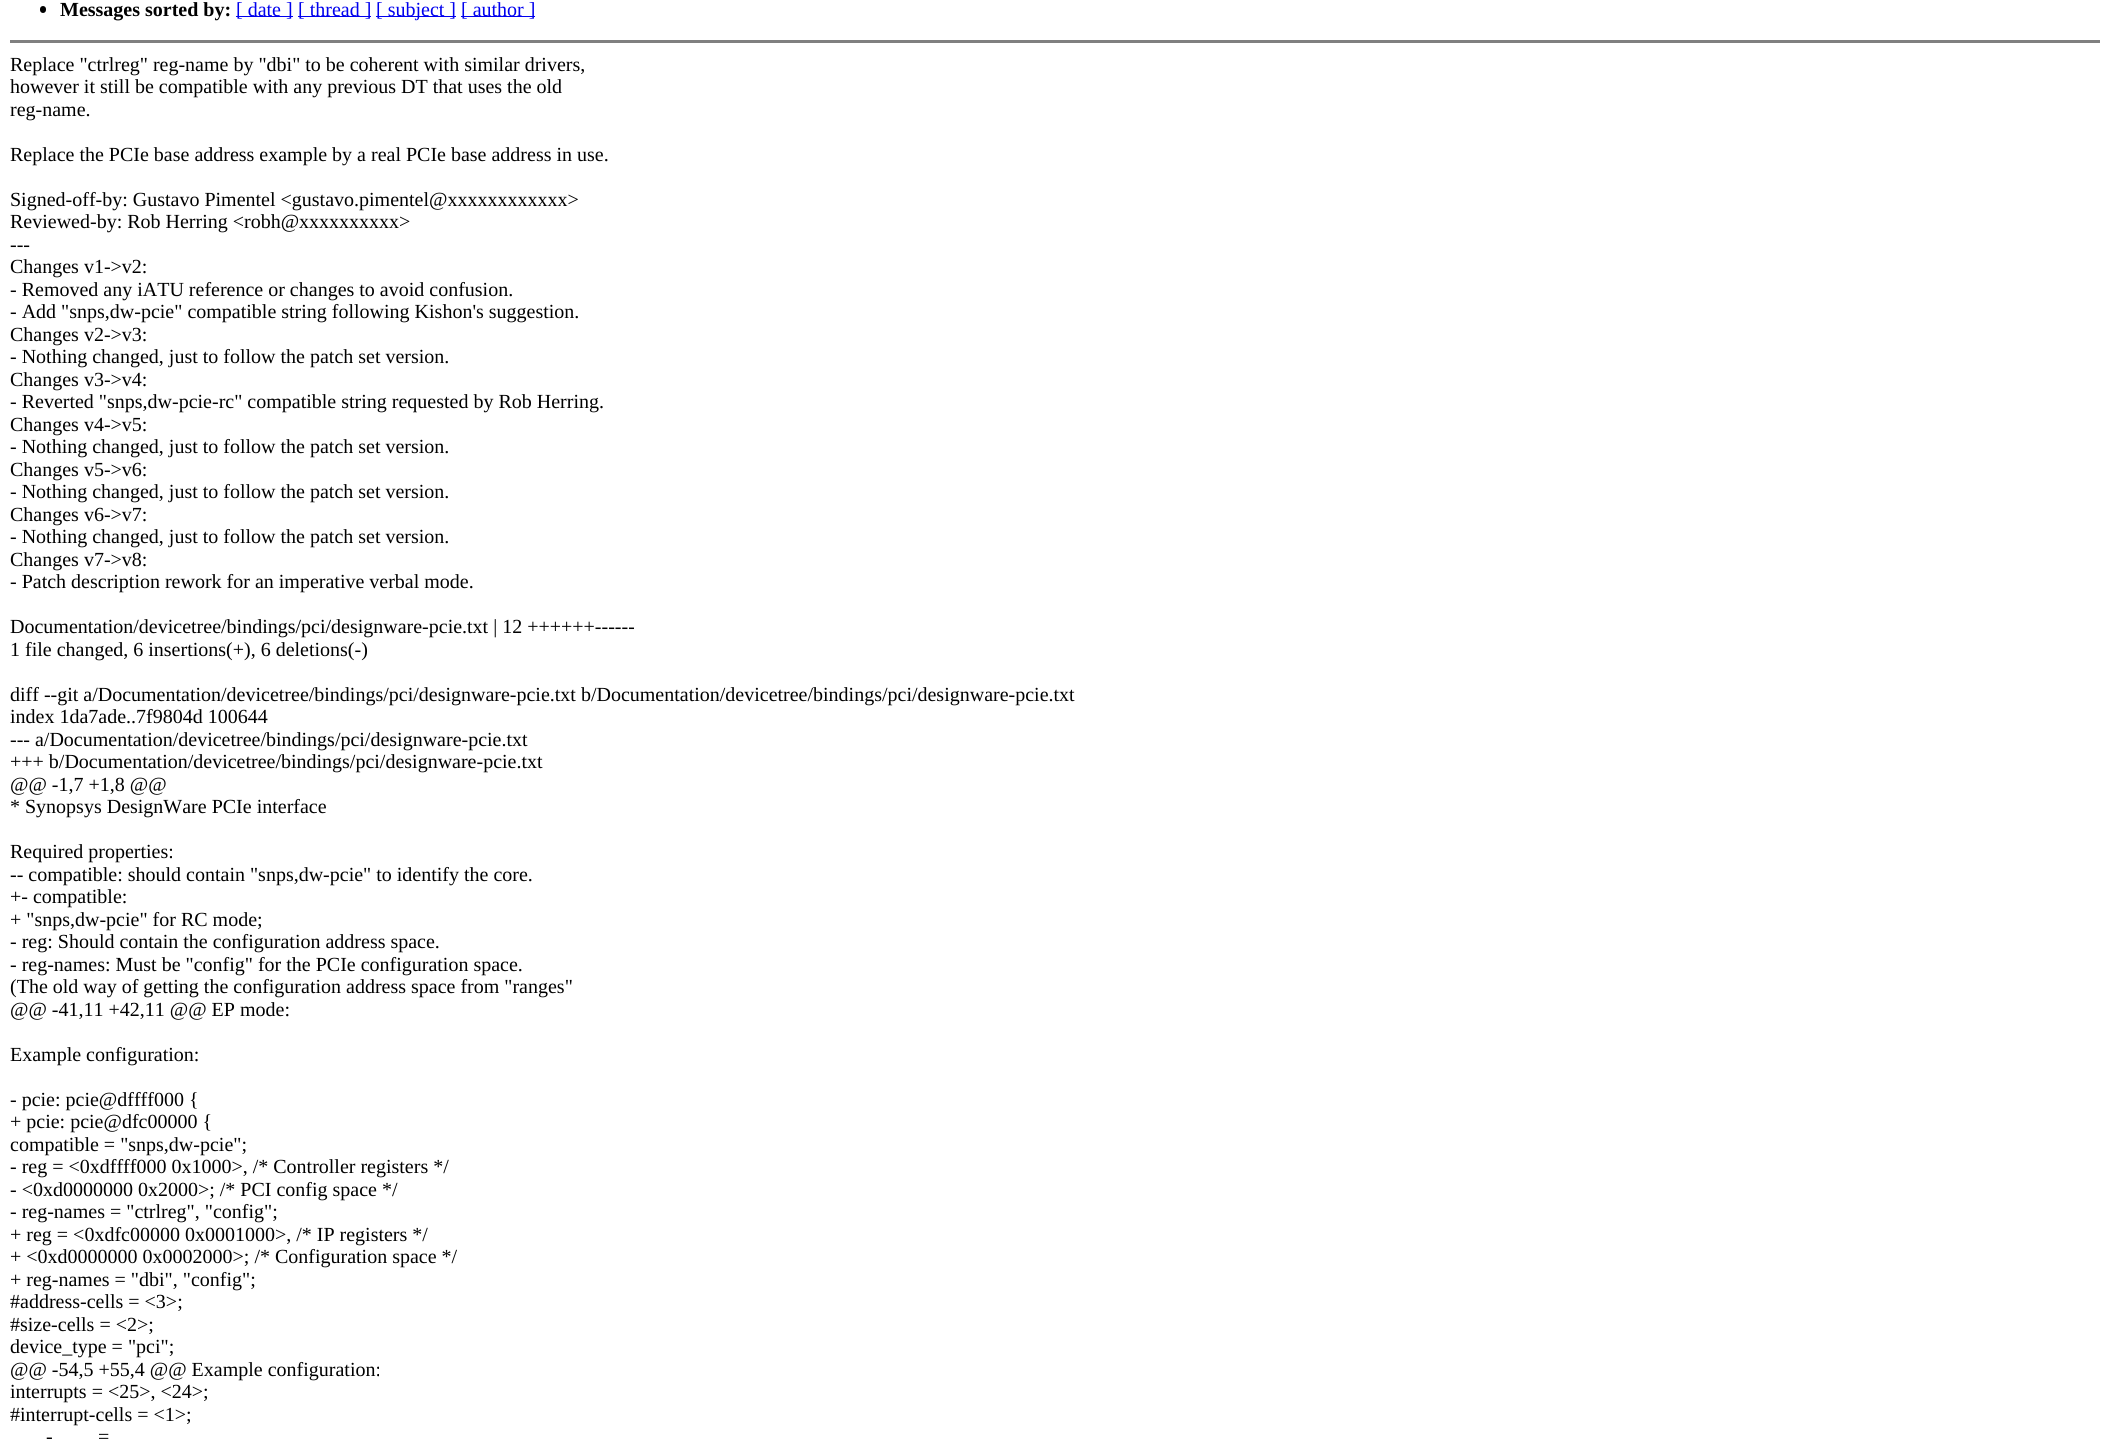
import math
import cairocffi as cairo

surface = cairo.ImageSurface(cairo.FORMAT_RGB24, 2110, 1439)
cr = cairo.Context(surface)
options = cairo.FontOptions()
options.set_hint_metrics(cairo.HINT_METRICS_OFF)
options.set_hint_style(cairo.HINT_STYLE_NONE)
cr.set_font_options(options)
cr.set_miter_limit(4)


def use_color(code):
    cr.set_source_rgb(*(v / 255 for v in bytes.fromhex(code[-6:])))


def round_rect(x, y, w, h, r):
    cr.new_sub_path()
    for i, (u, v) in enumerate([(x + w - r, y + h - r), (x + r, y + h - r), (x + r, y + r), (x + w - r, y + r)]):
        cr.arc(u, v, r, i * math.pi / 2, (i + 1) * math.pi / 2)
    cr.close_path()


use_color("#ffffff")
cr.paint()
use_color("#000000")
round_rect(40, 6, 6, 7, 3)
cr.fill()
cr.select_font_face("Liberation Serif", cairo.FONT_SLANT_NORMAL, cairo.FONT_WEIGHT_BOLD)
cr.set_font_size(20)
cr.move_to(60, 16)
cr.show_text("Messages sorted by:")
use_color("#0000ee")
cr.rectangle(236, 16, 57, 1)
cr.fill()
cr.select_font_face("Liberation Serif")
cr.move_to(236, 16)
cr.show_text("[ date ]")
cr.rectangle(298, 16, 73, 1)
cr.fill()
cr.move_to(298, 16)
cr.show_text("[ thread ]")
cr.rectangle(376, 16, 80, 1)
cr.fill()
cr.move_to(376, 16)
cr.show_text("[ subject ]")
cr.rectangle(461, 16, 74, 1)
cr.fill()
cr.move_to(461, 16)
cr.show_text("[ author ]")
use_color("#808080")
cr.rectangle(10, 40, 2090, 3)
cr.fill()
use_color("#000000")
cr.move_to(10, 71)
cr.show_text("Replace \"ctrlreg\" reg-name by \"dbi\" to be coherent with similar drivers,")
cr.move_to(10, 93)
cr.show_text("however it still be compatible with any previous DT that uses the old")
cr.move_to(10, 116)
cr.show_text("reg-name.")
cr.move_to(10, 161)
cr.show_text("Replace the PCIe base address example by a real PCIe base address in use.")
cr.move_to(10, 206)
cr.show_text("Signed-off-by: Gustavo Pimentel <gustavo.pimentel@xxxxxxxxxxxx>")
cr.move_to(10, 228)
cr.show_text("Reviewed-by: Rob Herring <robh@xxxxxxxxxx>")
cr.move_to(10, 251)
cr.show_text("---")
cr.move_to(10, 273)
cr.show_text("Changes v1->v2:")
cr.move_to(10, 296)
cr.show_text("- Removed any iATU reference or changes to avoid confusion.")
cr.move_to(10, 318)
cr.show_text("- Add \"snps,dw-pcie\" compatible string following Kishon's suggestion.")
cr.move_to(10, 341)
cr.show_text("Changes v2->v3:")
cr.move_to(10, 363)
cr.show_text("- Nothing changed, just to follow the patch set version.")
cr.move_to(10, 386)
cr.show_text("Changes v3->v4:")
cr.move_to(10, 408)
cr.show_text("- Reverted \"snps,dw-pcie-rc\" compatible string requested by Rob Herring.")
cr.move_to(10, 431)
cr.show_text("Changes v4->v5:")
cr.move_to(10, 453)
cr.show_text("- Nothing changed, just to follow the patch set version.")
cr.move_to(10, 476)
cr.show_text("Changes v5->v6:")
cr.move_to(10, 498)
cr.show_text("- Nothing changed, just to follow the patch set version.")
cr.move_to(10, 521)
cr.show_text("Changes v6->v7:")
cr.move_to(10, 543)
cr.show_text("- Nothing changed, just to follow the patch set version.")
cr.move_to(10, 566)
cr.show_text("Changes v7->v8:")
cr.move_to(10, 588)
cr.show_text("- Patch description rework for an imperative verbal mode.")
cr.move_to(10, 633)
cr.show_text("Documentation/devicetree/bindings/pci/designware-pcie.txt | 12 ++++++------")
cr.move_to(10, 656)
cr.show_text("1 file changed, 6 insertions(+), 6 deletions(-)")
cr.move_to(10, 701)
cr.show_text("diff --git a/Documentation/devicetree/bindings/pci/designware-pcie.txt b/Documentation/devicetree/bindings/pci/designware-pcie.txt")
cr.move_to(10, 723)
cr.show_text("index 1da7ade..7f9804d 100644")
cr.move_to(10, 746)
cr.show_text("--- a/Documentation/devicetree/bindings/pci/designware-pcie.txt")
cr.move_to(10, 768)
cr.show_text("+++ b/Documentation/devicetree/bindings/pci/designware-pcie.txt")
cr.move_to(10, 791)
cr.show_text("@@ -1,7 +1,8 @@")
cr.move_to(10, 813)
cr.show_text("* Synopsys DesignWare PCIe interface")
cr.move_to(10, 858)
cr.show_text("Required properties:")
cr.move_to(10, 881)
cr.show_text("-- compatible: should contain \"snps,dw-pcie\" to identify the core.")
cr.move_to(10, 903)
cr.show_text("+- compatible:")
cr.move_to(10, 926)
cr.show_text("+ \"snps,dw-pcie\" for RC mode;")
cr.move_to(10, 948)
cr.show_text("- reg: Should contain the configuration address space.")
cr.move_to(10, 971)
cr.show_text("- reg-names: Must be \"config\" for the PCIe configuration space.")
cr.move_to(10, 993)
cr.show_text("(The old way of getting the configuration address space from \"ranges\"")
cr.move_to(10, 1016)
cr.show_text("@@ -41,11 +42,11 @@ EP mode:")
cr.move_to(10, 1061)
cr.show_text("Example configuration:")
cr.move_to(10, 1106)
cr.show_text("- pcie: pcie@dffff000 {")
cr.move_to(10, 1128)
cr.show_text("+ pcie: pcie@dfc00000 {")
cr.move_to(10, 1151)
cr.show_text("compatible = \"snps,dw-pcie\";")
cr.move_to(10, 1173)
cr.show_text("- reg = <0xdffff000 0x1000>, /* Controller registers */")
cr.move_to(10, 1196)
cr.show_text("- <0xd0000000 0x2000>; /* PCI config space */")
cr.move_to(10, 1218)
cr.show_text("- reg-names = \"ctrlreg\", \"config\";")
cr.move_to(10, 1241)
cr.show_text("+ reg = <0xdfc00000 0x0001000>, /* IP registers */")
cr.move_to(10, 1263)
cr.show_text("+ <0xd0000000 0x0002000>; /* Configuration space */")
cr.move_to(10, 1286)
cr.show_text("+ reg-names = \"dbi\", \"config\";")
cr.move_to(10, 1308)
cr.show_text("#address-cells = <3>;")
cr.move_to(10, 1331)
cr.show_text("#size-cells = <2>;")
cr.move_to(10, 1353)
cr.show_text("device_type = \"pci\";")
cr.move_to(10, 1376)
cr.show_text("@@ -54,5 +55,4 @@ Example configuration:")
cr.move_to(10, 1398)
cr.show_text("interrupts = <25>, <24>;")
cr.move_to(10, 1421)
cr.show_text("#interrupt-cells = <1>;")
cr.move_to(46, 1443)
cr.show_text("-")
cr.move_to(98, 1443)
cr.show_text("=")
surface.write_to_png("result.png")
